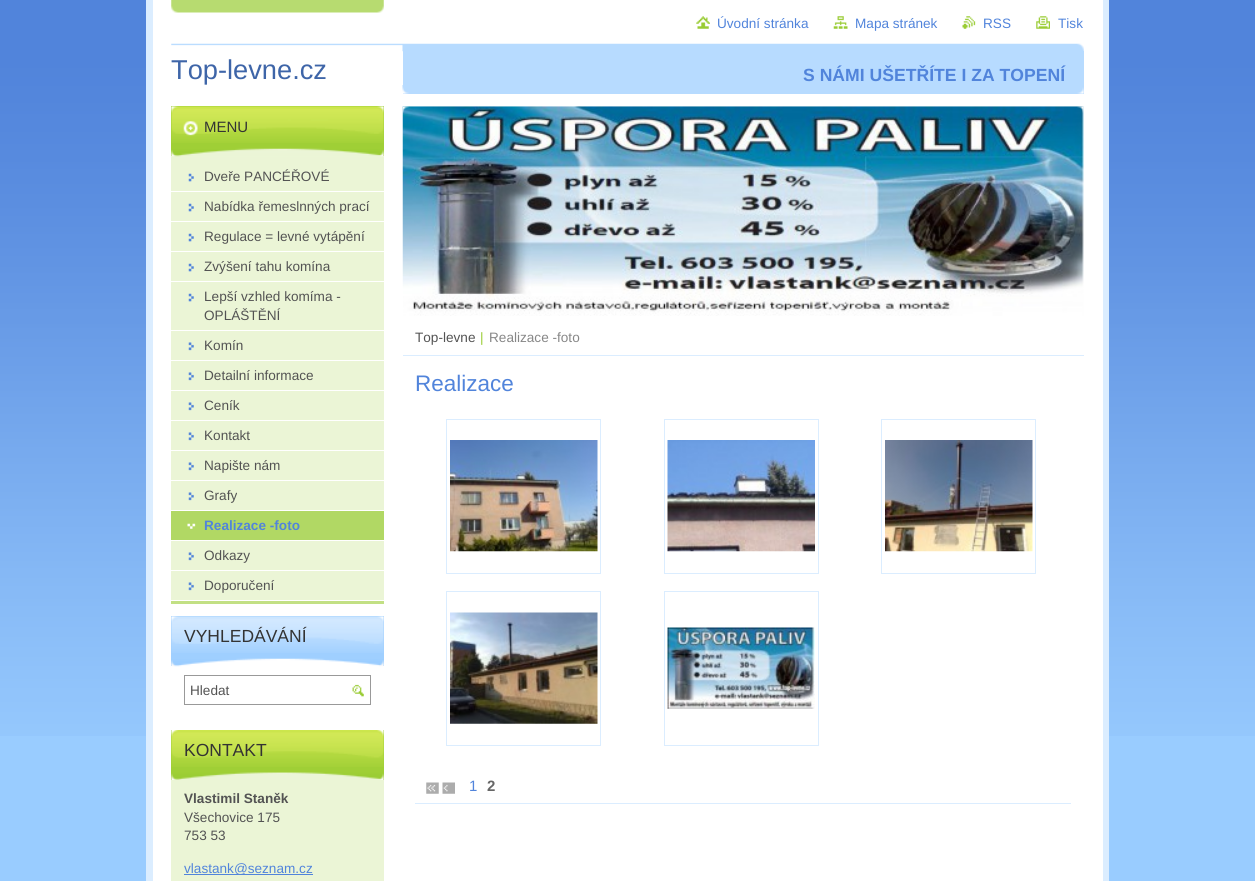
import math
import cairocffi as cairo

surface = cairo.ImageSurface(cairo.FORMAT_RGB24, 1255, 881)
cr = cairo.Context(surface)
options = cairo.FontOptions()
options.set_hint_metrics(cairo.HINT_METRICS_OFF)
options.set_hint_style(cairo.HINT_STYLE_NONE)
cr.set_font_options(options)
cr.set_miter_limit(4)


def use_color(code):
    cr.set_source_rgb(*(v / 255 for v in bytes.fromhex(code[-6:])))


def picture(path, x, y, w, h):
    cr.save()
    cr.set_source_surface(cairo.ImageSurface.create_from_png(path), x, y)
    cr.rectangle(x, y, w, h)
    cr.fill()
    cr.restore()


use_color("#99ccff")
cr.paint()
picture("img1.png", 0, 0, 1255, 736)
use_color("#ffffff")
cr.rectangle(153, 0, 950, 881)
cr.fill()
picture("img2.png", 171, 0, 213, 13)
use_color("#dbedff")
cr.rectangle(1103, 0, 6, 881)
cr.fill()
cr.rectangle(146, 0, 7, 881)
cr.fill()
picture("img3.png", 696, 16, 14, 13)
cr.select_font_face("Liberation Sans")
cr.set_font_size(13.6)
use_color("#5184db")
cr.move_to(717, 28)
cr.show_text("Úvodní stránka")
picture("img4.png", 833, 16, 15, 13)
cr.move_to(855, 28)
cr.show_text("Mapa stránek")
picture("img5.png", 962, 16, 14, 13)
cr.move_to(983, 28)
cr.show_text("RSS")
picture("img6.png", 1036, 16, 14, 13)
cr.move_to(1058, 28)
cr.show_text("Tisk")
picture("img7.png", 171, 43, 913, 9)
cr.set_font_size(27.25)
use_color("#3e65a8")
cr.move_to(171, 79)
cr.show_text("Top-levne.cz")
use_color("#b7dbff")
cr.rectangle(403, 51, 681, 43)
cr.fill()
picture("img8.png", 402, 85, 682, 9)
cr.select_font_face("Liberation Sans", cairo.FONT_SLANT_NORMAL, cairo.FONT_WEIGHT_BOLD)
cr.set_font_size(17.6)
use_color("#5184db")
cr.move_to(803, 81)
cr.show_text("S NÁMI UŠETŘÍTE I ZA TOPENÍ")
use_color("#c2e084")
cr.rectangle(171, 601, 213, 3)
cr.fill()
use_color("#ebf5d6")
cr.rectangle(171, 156, 213, 444)
cr.fill()
use_color("#9fcf36")
cr.rectangle(171, 106, 213, 50)
cr.fill()
picture("img9.png", 171, 106, 213, 37)
picture("img10.png", 171, 148, 213, 9)
cr.select_font_face("Liberation Sans")
cr.set_font_size(15)
use_color("#333333")
cr.move_to(204, 132)
cr.show_text("MENU")
picture("img11.png", 188, 173, 6, 9)
use_color("#ffffff")
cr.rectangle(171, 191, 213, 1)
cr.fill()
cr.set_font_size(13.6)
use_color("#535353")
cr.move_to(204, 181)
cr.show_text("Dveře PANCÉŘOVÉ")
picture("img11.png", 188, 203, 6, 9)
use_color("#ffffff")
cr.rectangle(171, 221, 213, 1)
cr.fill()
use_color("#535353")
cr.move_to(204, 211)
cr.show_text("Nabídka řemeslnných prací")
picture("img11.png", 188, 233, 6, 9)
use_color("#ffffff")
cr.rectangle(171, 251, 213, 1)
cr.fill()
use_color("#535353")
cr.move_to(204, 241)
cr.show_text("Regulace = levné vytápění")
picture("img11.png", 188, 263, 6, 9)
use_color("#ffffff")
cr.rectangle(171, 281, 213, 1)
cr.fill()
use_color("#535353")
cr.move_to(204, 271)
cr.show_text("Zvýšení tahu komína")
picture("img11.png", 188, 293, 6, 9)
use_color("#ffffff")
cr.rectangle(171, 330, 213, 1)
cr.fill()
use_color("#535353")
cr.move_to(204, 301)
cr.show_text("Lepší vzhled komíma -")
cr.move_to(204, 320)
cr.show_text("OPLÁŠTĚNÍ")
picture("img12.png", 188, 342, 6, 9)
use_color("#ffffff")
cr.rectangle(171, 360, 213, 1)
cr.fill()
use_color("#535353")
cr.move_to(204, 350)
cr.show_text("Komín")
picture("img12.png", 188, 372, 6, 9)
use_color("#ffffff")
cr.rectangle(171, 390, 213, 1)
cr.fill()
use_color("#535353")
cr.move_to(204, 380)
cr.show_text("Detailní informace")
picture("img12.png", 188, 402, 6, 9)
use_color("#ffffff")
cr.rectangle(171, 420, 213, 1)
cr.fill()
use_color("#535353")
cr.move_to(204, 410)
cr.show_text("Ceník")
picture("img12.png", 188, 432, 6, 9)
use_color("#ffffff")
cr.rectangle(171, 450, 213, 1)
cr.fill()
use_color("#535353")
cr.move_to(204, 440)
cr.show_text("Kontakt")
picture("img12.png", 188, 462, 6, 9)
use_color("#ffffff")
cr.rectangle(171, 480, 213, 1)
cr.fill()
use_color("#535353")
cr.move_to(204, 470)
cr.show_text("Napište nám")
picture("img12.png", 188, 492, 6, 9)
use_color("#ffffff")
cr.rectangle(171, 510, 213, 1)
cr.fill()
use_color("#535353")
cr.move_to(204, 500)
cr.show_text("Grafy")
use_color("#b1d864")
cr.rectangle(171, 511, 213, 29)
cr.fill()
picture("img13.png", 187, 523, 9, 6)
use_color("#ffffff")
cr.rectangle(171, 540, 213, 1)
cr.fill()
cr.select_font_face("Liberation Sans", cairo.FONT_SLANT_NORMAL, cairo.FONT_WEIGHT_BOLD)
use_color("#5184db")
cr.move_to(204, 530)
cr.show_text("Realizace -foto")
picture("img12.png", 188, 552, 6, 9)
use_color("#ffffff")
cr.rectangle(171, 570, 213, 1)
cr.fill()
cr.select_font_face("Liberation Sans")
use_color("#535353")
cr.move_to(204, 560)
cr.show_text("Odkazy")
picture("img12.png", 188, 582, 6, 9)
cr.move_to(204, 590)
cr.show_text("Doporučení")
use_color("#9fcfff")
cr.rectangle(171, 616, 213, 50)
cr.fill()
picture("img14.png", 171, 616, 213, 37)
picture("img15.png", 171, 658, 213, 9)
cr.set_font_size(17.5)
use_color("#333333")
cr.move_to(184, 642)
cr.show_text("VYHLEDÁVÁNÍ")
cr.rectangle(184.5, 675.5, 186, 29)
use_color("#999999")
cr.set_line_width(1)
cr.stroke()
cr.set_font_size(13.6)
use_color("#535353")
cr.move_to(190, 695)
cr.show_text("Hledat")
picture("img16.png", 352, 684, 12, 13)
use_color("#ebf5d6")
cr.rectangle(171, 780, 213, 101)
cr.fill()
use_color("#9fcf36")
cr.rectangle(171, 730, 213, 50)
cr.fill()
picture("img17.png", 171, 730, 213, 37)
picture("img18.png", 171, 772, 213, 8)
cr.set_font_size(17.5)
use_color("#333333")
cr.move_to(184, 756)
cr.show_text("KONTAKT")
cr.select_font_face("Liberation Sans", cairo.FONT_SLANT_NORMAL, cairo.FONT_WEIGHT_BOLD)
cr.set_font_size(13.6)
use_color("#535353")
cr.move_to(184, 803)
cr.show_text("Vlastimil Staněk")
cr.select_font_face("Liberation Sans")
cr.move_to(184, 822)
cr.show_text("Všechovice 175")
cr.move_to(184, 840)
cr.show_text("753 53")
use_color("#5184db")
cr.rectangle(184, 874, 129, 1)
cr.fill()
cr.move_to(184, 873)
cr.show_text("vlastank@seznam.cz")
picture("img19.png", 402, 106, 682, 210)
picture("img20.png", 402, 106, 682, 7)
use_color("#dbedff")
cr.rectangle(403, 355, 681, 1)
cr.fill()
use_color("#535353")
cr.move_to(415, 342)
cr.show_text("Top-levne")
use_color("#99cc33")
cr.move_to(480, 342)
cr.show_text("|")
use_color("#878787")
cr.move_to(489, 342)
cr.show_text("Realizace -foto")
cr.set_font_size(22.5)
use_color("#5184db")
cr.move_to(415, 391)
cr.show_text("Realizace")
cr.rectangle(446.5, 419.5, 154, 154)
use_color("#dbedff")
cr.stroke()
picture("img21.png", 450, 440, 148, 112)
cr.rectangle(664.5, 419.5, 154, 154)
cr.stroke()
picture("img22.png", 667, 440, 148, 112)
cr.rectangle(881.5, 419.5, 154, 154)
cr.stroke()
picture("img23.png", 885, 440, 148, 112)
cr.rectangle(446.5, 591.5, 154, 154)
cr.stroke()
picture("img24.png", 450, 612, 148, 112)
cr.rectangle(664.5, 591.5, 154, 154)
cr.stroke()
picture("img25.png", 667, 627, 148, 82)
cr.rectangle(415, 803, 656, 1)
cr.fill()
picture("img26.png", 426, 782, 13, 12)
picture("img27.png", 442, 782, 13, 12)
cr.set_font_size(15)
use_color("#5184db")
cr.move_to(469, 791)
cr.show_text("1")
cr.select_font_face("Liberation Sans", cairo.FONT_SLANT_NORMAL, cairo.FONT_WEIGHT_BOLD)
use_color("#666666")
cr.move_to(487, 791)
cr.show_text("2")
surface.write_to_png("result.png")
